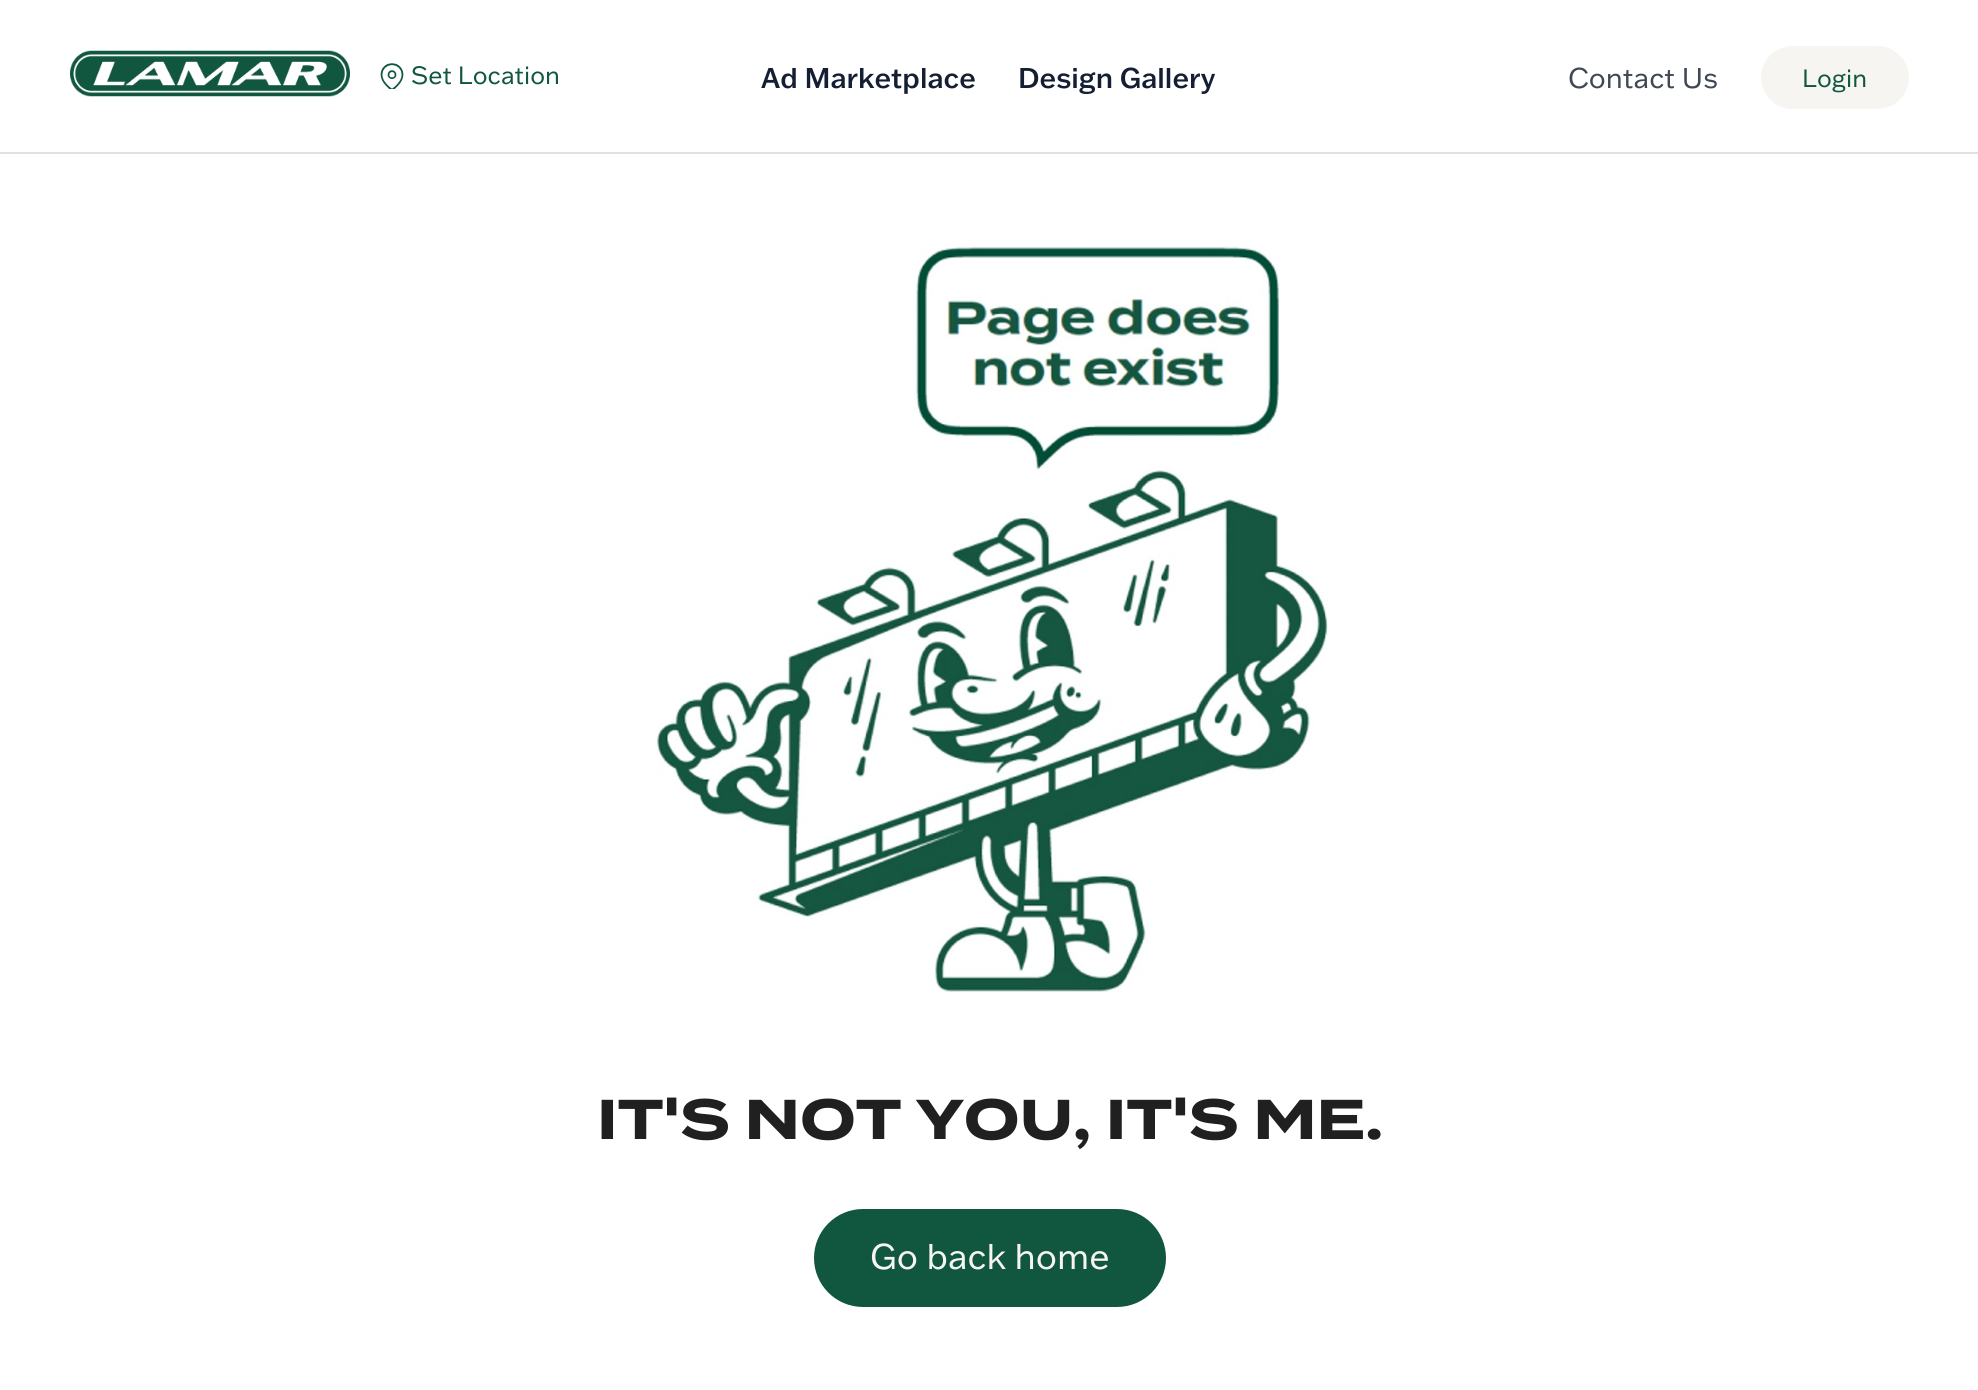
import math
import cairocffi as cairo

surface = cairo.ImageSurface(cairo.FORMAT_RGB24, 1978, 1390)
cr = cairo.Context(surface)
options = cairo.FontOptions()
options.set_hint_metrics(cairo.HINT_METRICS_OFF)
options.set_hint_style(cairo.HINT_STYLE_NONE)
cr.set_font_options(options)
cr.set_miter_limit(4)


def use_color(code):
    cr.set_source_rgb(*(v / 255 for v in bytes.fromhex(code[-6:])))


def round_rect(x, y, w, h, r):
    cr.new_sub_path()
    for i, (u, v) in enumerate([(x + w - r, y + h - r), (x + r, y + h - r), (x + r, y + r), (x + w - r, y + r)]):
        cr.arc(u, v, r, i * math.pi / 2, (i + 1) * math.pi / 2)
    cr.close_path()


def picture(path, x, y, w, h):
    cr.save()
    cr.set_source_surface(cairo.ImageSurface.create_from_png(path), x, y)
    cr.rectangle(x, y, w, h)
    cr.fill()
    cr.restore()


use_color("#ffffff")
cr.paint()
use_color("#e2e1de")
cr.rectangle(0, 152, 1978, 2)
cr.fill()
picture("img1.png", 70, 50, 280, 47)
picture("img2.png", 380, 63, 24, 26)
cr.select_font_face("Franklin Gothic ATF")
cr.set_font_size(24.5)
use_color("#115740")
cr.move_to(411, 84)
cr.show_text("Set Location")
cr.select_font_face("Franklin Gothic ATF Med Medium")
cr.set_font_size(28)
use_color("#141f33")
cr.move_to(761, 88)
cr.show_text("Ad Marketplace")
cr.move_to(1018, 88)
cr.show_text("Design Gallery")
cr.select_font_face("Franklin Gothic ATF")
use_color("#404856")
cr.move_to(1568, 88)
cr.show_text("Contact Us")
use_color("#f7f5f2")
round_rect(1761, 46, 148, 63, 31.5)
cr.fill()
cr.set_font_size(24.5)
use_color("#115740")
cr.move_to(1802, 87)
cr.show_text("Login")
picture("img3.png", 655, 246, 675, 746)
cr.select_font_face("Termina", cairo.FONT_SLANT_NORMAL, cairo.FONT_WEIGHT_BOLD)
cr.set_font_size(56)
use_color("#202020")
cr.move_to(597, 1139)
cr.show_text("IT'S NOT YOU, IT'S ME.")
use_color("#115740")
round_rect(814, 1209, 352, 98, 49)
cr.fill()
cr.select_font_face("Franklin Gothic ATF")
cr.set_font_size(35)
use_color("#f7f5f2")
cr.move_to(870, 1269)
cr.show_text("Go back home")
surface.write_to_png("result.png")
